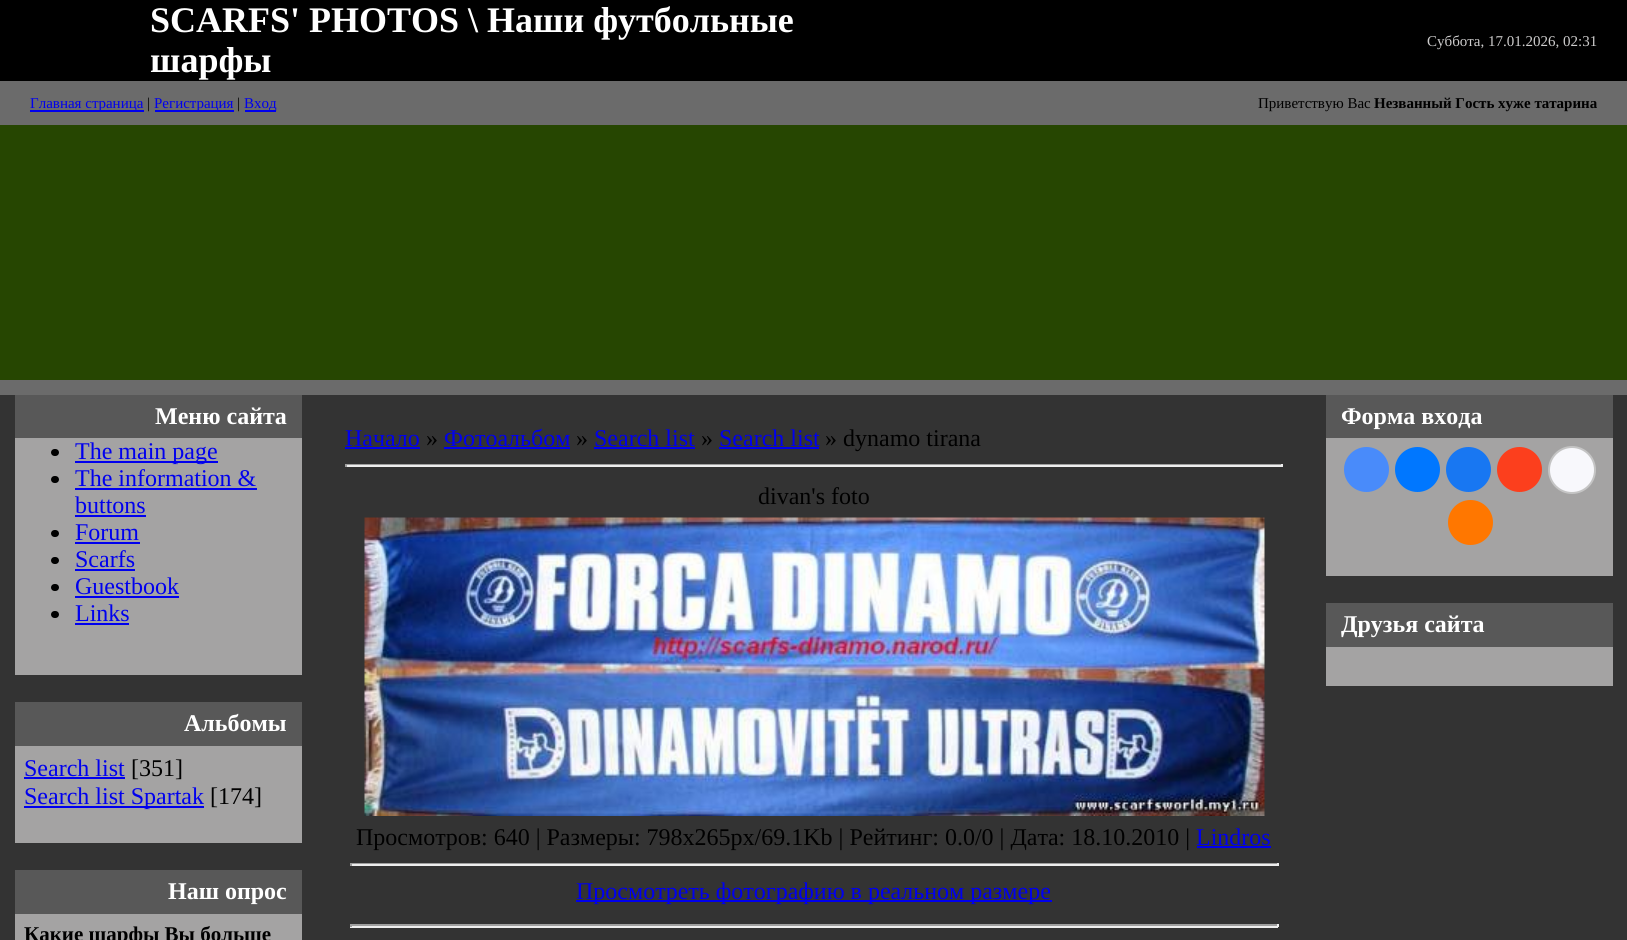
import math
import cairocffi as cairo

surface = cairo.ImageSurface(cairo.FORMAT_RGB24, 1627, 940)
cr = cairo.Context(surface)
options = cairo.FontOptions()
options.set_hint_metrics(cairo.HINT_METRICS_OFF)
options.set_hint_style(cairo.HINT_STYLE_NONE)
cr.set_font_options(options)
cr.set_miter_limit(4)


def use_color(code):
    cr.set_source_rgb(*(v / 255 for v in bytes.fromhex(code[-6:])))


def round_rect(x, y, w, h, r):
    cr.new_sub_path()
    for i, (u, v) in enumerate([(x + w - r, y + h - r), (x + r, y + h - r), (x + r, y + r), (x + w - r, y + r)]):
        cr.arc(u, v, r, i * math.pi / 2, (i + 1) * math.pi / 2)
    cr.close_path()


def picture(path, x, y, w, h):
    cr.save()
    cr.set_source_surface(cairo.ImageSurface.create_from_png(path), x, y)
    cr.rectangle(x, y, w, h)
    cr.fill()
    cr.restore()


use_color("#333333")
cr.paint()
use_color("#000000")
cr.rectangle(0, 0, 1627, 81)
cr.fill()
cr.select_font_face("Liberation Serif", cairo.FONT_SLANT_NORMAL, cairo.FONT_WEIGHT_BOLD)
cr.set_font_size(36)
use_color("#ffffff")
cr.move_to(150, 32)
cr.show_text("SCARFS' PHOTOS \\ Наши футбольные")
cr.move_to(150, 72)
cr.show_text("шарфы")
cr.select_font_face("Liberation Serif")
cr.set_font_size(15)
use_color("#cecdcd")
cr.move_to(1427, 46)
cr.show_text("Суббота, 17.01.2026, 02:31")
use_color("#6b6b6b")
cr.rectangle(0, 81, 1627, 44)
cr.fill()
use_color("#0000ee")
cr.rectangle(30, 110, 114, 2)
cr.fill()
cr.move_to(30, 108)
cr.show_text("Главная страница")
use_color("#000000")
cr.move_to(147, 108)
cr.show_text("|")
use_color("#0000ee")
cr.rectangle(155, 110, 79, 2)
cr.fill()
cr.move_to(154, 108)
cr.show_text("Регистрация")
use_color("#000000")
cr.move_to(237, 108)
cr.show_text("|")
use_color("#0000ee")
cr.rectangle(245, 110, 31, 2)
cr.fill()
cr.move_to(244, 108)
cr.show_text("Вход")
use_color("#000000")
cr.move_to(1258, 108)
cr.show_text("Приветствую Вас")
cr.select_font_face("Liberation Serif", cairo.FONT_SLANT_NORMAL, cairo.FONT_WEIGHT_BOLD)
cr.move_to(1374, 108)
cr.show_text("Незванный Гость хуже татарина")
use_color("#264601")
cr.rectangle(0, 125, 1627, 255)
cr.fill()
use_color("#6b6b6b")
cr.rectangle(0, 380, 1627, 15)
cr.fill()
use_color("#a4a3a3")
cr.rectangle(15, 438, 287, 237)
cr.fill()
use_color("#585858")
cr.rectangle(15, 395, 287, 43)
cr.fill()
cr.set_font_size(24)
use_color("#ffffff")
cr.move_to(155, 424)
cr.show_text("Меню сайта")
use_color("#000000")
round_rect(51, 449, 8, 7, 3.5)
cr.fill()
use_color("#0000ee")
cr.rectangle(75, 461, 143, 2)
cr.fill()
cr.select_font_face("Liberation Serif")
cr.move_to(75, 459)
cr.show_text("The main page")
use_color("#000000")
round_rect(51, 476, 8, 7, 3.5)
cr.fill()
use_color("#0000ee")
cr.move_to(75, 486)
cr.show_text("The information &")
cr.rectangle(75, 488, 182, 2)
cr.fill()
cr.move_to(75, 513)
cr.show_text("buttons")
cr.rectangle(75, 515, 71, 2)
cr.fill()
use_color("#000000")
round_rect(51, 530, 8, 7, 3.5)
cr.fill()
use_color("#0000ee")
cr.move_to(75, 540)
cr.show_text("Forum")
cr.rectangle(75, 542, 65, 2)
cr.fill()
use_color("#000000")
round_rect(51, 557, 8, 7, 3.5)
cr.fill()
use_color("#0000ee")
cr.move_to(75, 567)
cr.show_text("Scarfs")
cr.rectangle(75, 569, 60, 2)
cr.fill()
use_color("#000000")
round_rect(51, 584, 8, 7, 3.5)
cr.fill()
use_color("#0000ee")
cr.move_to(75, 594)
cr.show_text("Guestbook")
cr.rectangle(75, 596, 104, 2)
cr.fill()
use_color("#000000")
round_rect(51, 611, 8, 7, 3.5)
cr.fill()
use_color("#0000ee")
cr.move_to(75, 621)
cr.show_text("Links")
cr.rectangle(75, 623, 54, 2)
cr.fill()
use_color("#a4a3a3")
cr.rectangle(15, 746, 287, 97)
cr.fill()
use_color("#585858")
cr.rectangle(15, 702, 287, 44)
cr.fill()
cr.select_font_face("Liberation Serif", cairo.FONT_SLANT_NORMAL, cairo.FONT_WEIGHT_BOLD)
use_color("#ffffff")
cr.move_to(184, 731)
cr.show_text("Альбомы")
cr.select_font_face("Liberation Serif")
use_color("#0000ee")
cr.move_to(24, 776)
cr.show_text("Search list")
cr.rectangle(24, 777, 101, 2)
cr.fill()
use_color("#000000")
cr.move_to(131, 776)
cr.show_text("[351]")
use_color("#0000ee")
cr.rectangle(24, 806, 180, 2)
cr.fill()
cr.move_to(24, 804)
cr.show_text("Search list Spartak")
use_color("#000000")
cr.move_to(210, 804)
cr.show_text("[174]")
use_color("#a4a3a3")
cr.rectangle(15, 914, 287, 26)
cr.fill()
use_color("#585858")
cr.rectangle(15, 870, 287, 44)
cr.fill()
cr.select_font_face("Liberation Serif", cairo.FONT_SLANT_NORMAL, cairo.FONT_WEIGHT_BOLD)
use_color("#ffffff")
cr.move_to(168, 899)
cr.show_text("Наш опрос")
cr.set_font_size(21)
use_color("#000000")
cr.move_to(24, 941)
cr.show_text("Какие шарфы Вы больше")
cr.select_font_face("Liberation Serif")
cr.set_font_size(24)
use_color("#0000ee")
cr.move_to(345, 446)
cr.show_text("Начало")
cr.rectangle(345, 447, 75, 2)
cr.fill()
use_color("#000000")
cr.move_to(426, 446)
cr.show_text("»")
use_color("#0000ee")
cr.move_to(444, 446)
cr.show_text("Фотоальбом")
cr.rectangle(444, 447, 126, 2)
cr.fill()
use_color("#000000")
cr.move_to(576, 446)
cr.show_text("»")
use_color("#0000ee")
cr.move_to(594, 446)
cr.show_text("Search list")
cr.rectangle(594, 447, 101, 2)
cr.fill()
use_color("#000000")
cr.move_to(701, 446)
cr.show_text("»")
use_color("#0000ee")
cr.move_to(719, 446)
cr.show_text("Search list")
cr.rectangle(719, 447, 100, 2)
cr.fill()
use_color("#000000")
cr.move_to(825, 446)
cr.show_text("» dynamo tirana")
use_color("#9f9f9f")
cr.rectangle(345, 464, 938, 1)
cr.fill()
use_color("#eeeeee")
cr.rectangle(1281, 464, 2, 3)
cr.fill()
cr.rectangle(345, 465, 938, 2)
cr.fill()
use_color("#9f9f9f")
cr.rectangle(345, 464, 2, 3)
cr.fill()
use_color("#000000")
cr.move_to(758, 504)
cr.show_text("divan's foto")
picture("img1.png", 364, 517, 901, 299)
cr.move_to(356, 845)
cr.show_text("Просмотров: 640 | Размеры: 798x265px/69.1Kb | Рейтинг: 0.0/0 | Дата: 18.10.2010 |")
use_color("#0000ee")
cr.move_to(1196, 845)
cr.show_text("Lindros")
cr.rectangle(1197, 846, 74, 2)
cr.fill()
use_color("#9f9f9f")
cr.rectangle(350, 863, 928, 1)
cr.fill()
use_color("#eeeeee")
cr.rectangle(1277, 863, 2, 3)
cr.fill()
cr.rectangle(350, 864, 928, 2)
cr.fill()
use_color("#9f9f9f")
cr.rectangle(350, 863, 2, 3)
cr.fill()
use_color("#0000ee")
cr.rectangle(576, 900, 476, 2)
cr.fill()
cr.move_to(576, 899)
cr.show_text("Просмотреть фотографию в реальном размере")
use_color("#9f9f9f")
cr.rectangle(350, 924, 928, 2)
cr.fill()
use_color("#eeeeee")
cr.rectangle(1277, 924, 2, 3)
cr.fill()
cr.rectangle(350, 926, 928, 2)
cr.fill()
use_color("#9f9f9f")
cr.rectangle(350, 924, 2, 3)
cr.fill()
use_color("#a4a3a3")
cr.rectangle(1326, 438, 287, 138)
cr.fill()
use_color("#585858")
cr.rectangle(1326, 395, 287, 43)
cr.fill()
cr.select_font_face("Liberation Serif", cairo.FONT_SLANT_NORMAL, cairo.FONT_WEIGHT_BOLD)
use_color("#ffffff")
cr.move_to(1341, 424)
cr.show_text("Форма входа")
use_color("#498bfa")
cr.new_path()
cr.arc(1366.5, 469.5, 22.5, 0, 2 * math.pi)
cr.fill()
use_color("#0077ff")
cr.arc(1417.5, 469.5, 22.5, 0, 2 * math.pi)
cr.fill()
use_color("#1877f2")
cr.arc(1468.5, 469.5, 22.5, 0, 2 * math.pi)
cr.fill()
use_color("#fc3f1d")
cr.arc(1519.5, 469.5, 22.5, 0, 2 * math.pi)
cr.fill()
use_color("#f8f8fc")
cr.arc(1572, 470, 23, 0, 2 * math.pi)
cr.fill_preserve()
use_color("#c4c4c4")
cr.stroke()
use_color("#ff7700")
cr.arc(1470.5, 522.5, 22.5, 0, 2 * math.pi)
cr.fill()
use_color("#a4a3a3")
cr.rectangle(1326, 647, 287, 39)
cr.fill()
use_color("#585858")
cr.rectangle(1326, 603, 287, 44)
cr.fill()
use_color("#ffffff")
cr.move_to(1341, 632)
cr.show_text("Друзья сайта")
surface.write_to_png("result.png")
